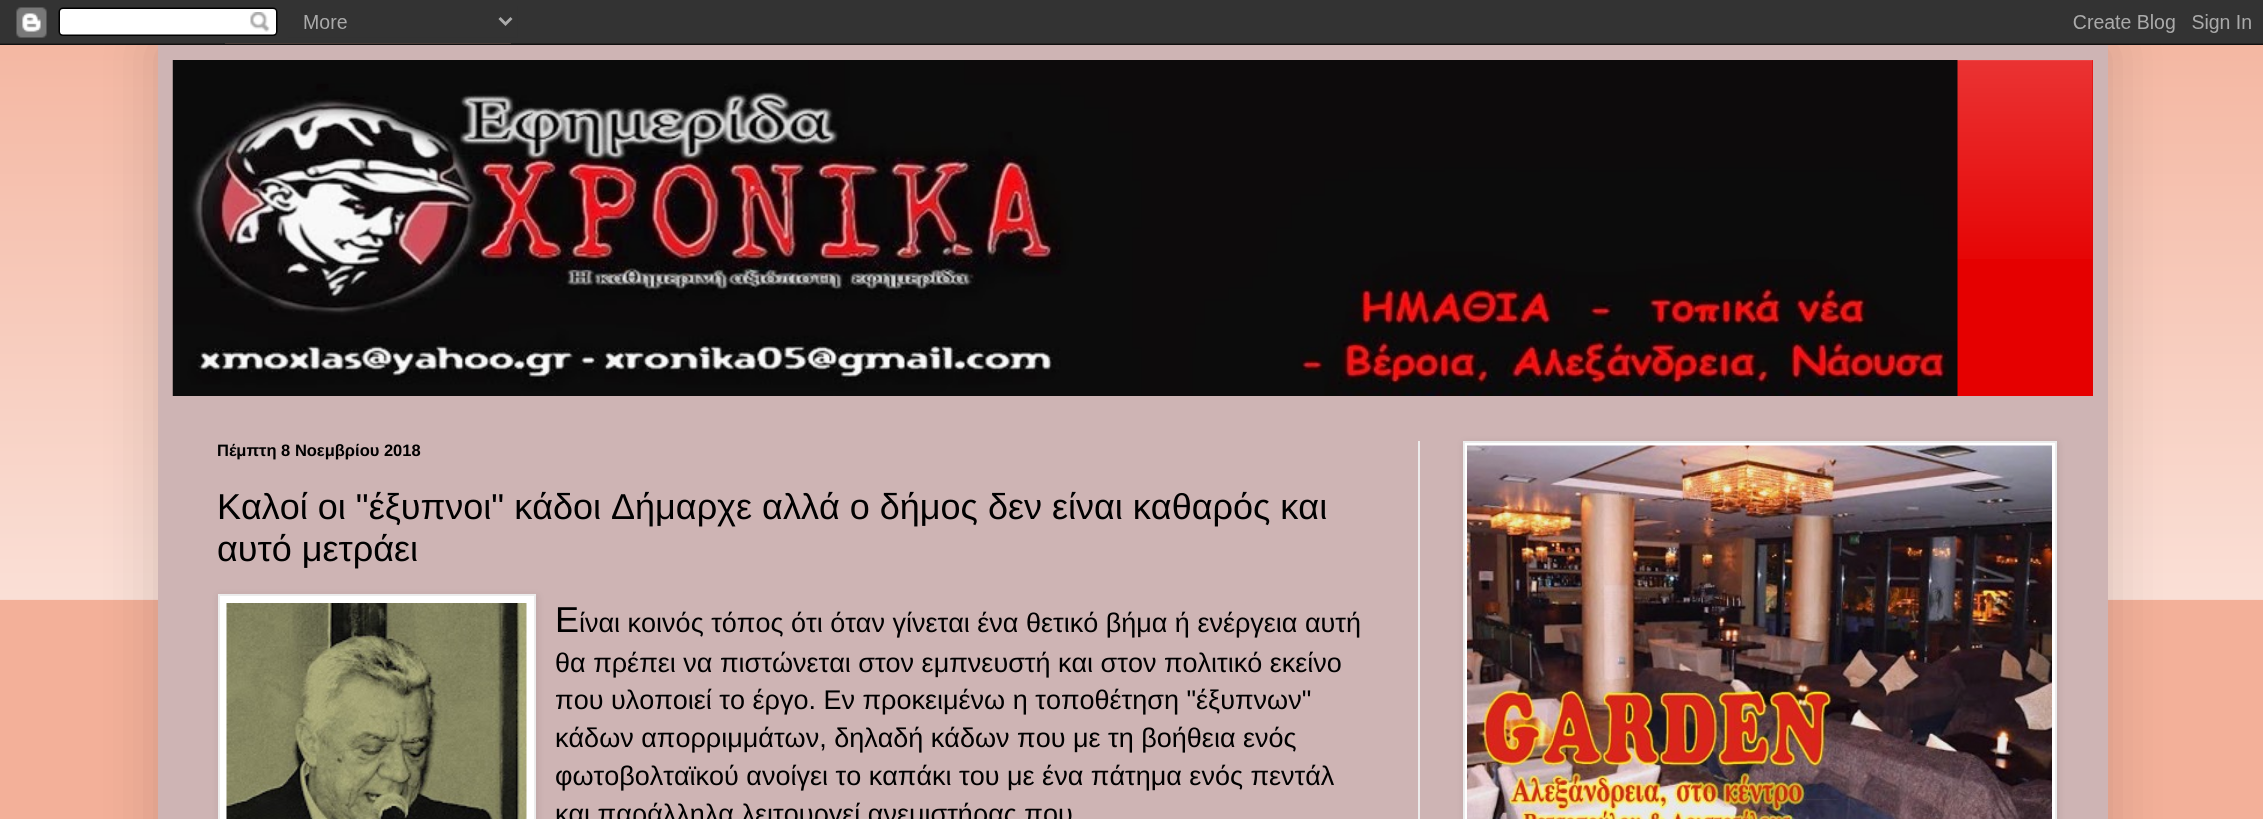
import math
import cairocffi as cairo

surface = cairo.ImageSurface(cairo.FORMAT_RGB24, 2263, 819)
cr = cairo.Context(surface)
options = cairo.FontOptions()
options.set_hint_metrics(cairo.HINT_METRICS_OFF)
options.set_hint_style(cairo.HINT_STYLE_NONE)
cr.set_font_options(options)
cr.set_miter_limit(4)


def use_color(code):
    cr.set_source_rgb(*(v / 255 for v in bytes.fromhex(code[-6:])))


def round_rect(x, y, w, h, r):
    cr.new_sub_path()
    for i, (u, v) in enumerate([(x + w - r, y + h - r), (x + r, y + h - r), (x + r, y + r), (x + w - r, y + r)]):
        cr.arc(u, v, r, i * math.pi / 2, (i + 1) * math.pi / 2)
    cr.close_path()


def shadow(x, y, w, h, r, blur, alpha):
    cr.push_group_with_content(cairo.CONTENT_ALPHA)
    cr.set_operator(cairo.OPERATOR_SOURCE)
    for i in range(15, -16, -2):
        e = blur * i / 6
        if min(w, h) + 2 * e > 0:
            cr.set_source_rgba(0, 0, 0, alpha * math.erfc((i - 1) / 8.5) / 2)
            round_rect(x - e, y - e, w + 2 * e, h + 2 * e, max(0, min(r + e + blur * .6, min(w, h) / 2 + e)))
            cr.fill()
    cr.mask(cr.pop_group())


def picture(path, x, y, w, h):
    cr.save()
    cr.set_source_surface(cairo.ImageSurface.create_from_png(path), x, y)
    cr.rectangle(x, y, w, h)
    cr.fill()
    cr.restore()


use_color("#f3b099")
cr.paint()
picture("img2.png", 0, 43, 2263, 557)
use_color("#000000")
shadow(158, 45, 1950, 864, 0, 30, 0.15)
picture("img1.png", 0, 0, 2263, 45)
use_color("#ceb4b4")
cr.rectangle(158, 45, 1950, 774)
cr.fill()
use_color("#e50000")
cr.rectangle(1957, 60, 136, 336)
cr.fill()
picture("img3.png", 172, 60, 1921, 199)
picture("img4.png", 172, 60, 1786, 336)
cr.select_font_face("Liberation Sans", cairo.FONT_SLANT_NORMAL, cairo.FONT_WEIGHT_BOLD)
cr.set_font_size(16.5)
use_color("#000000")
cr.move_to(217, 456)
cr.show_text("Πέμπτη 8 Νοεμβρίου 2018")
cr.select_font_face("Liberation Sans")
cr.set_font_size(36)
cr.move_to(217, 519)
cr.show_text("Καλοί οι \"έξυπνοι\" κάδοι Δήμαρχε αλλά ο δήμος δεν είναι καθαρός και")
cr.move_to(217, 561)
cr.show_text("αυτό μετράει")
use_color("#000000")
shadow(219, 596, 318, 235, 0, 4, 0.1)
use_color("#ffffff")
cr.rectangle(219, 595, 316, 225)
cr.fill_preserve()
use_color("#ececec")
cr.stroke()
picture("img5.png", 226, 603, 301, 216)
use_color("#000000")
cr.move_to(555, 632)
cr.show_text("Ε")
cr.set_font_size(27)
cr.move_to(579, 632)
cr.show_text("ίναι κοινός τόπος ότι όταν γίνεται ένα θετικό βήμα ή ενέργεια αυτή")
cr.move_to(555, 672)
cr.show_text("θα πρέπει να πιστώνεται στον εμπνευστή και στον πολιτικό εκείνο")
cr.move_to(555, 709)
cr.show_text("που υλοποιεί το έργο. Εν προκειμένω η τοποθέτηση \"έξυπνων\"")
cr.move_to(555, 747)
cr.show_text("κάδων απορριμμάτων, δηλαδή κάδων που με τη βοήθεια ενός")
cr.move_to(555, 785)
cr.show_text("φωτοβολταϊκού ανοίγει το καπάκι του με ένα πάτημα ενός πεντάλ")
cr.move_to(555, 823)
cr.show_text("και παράλληλα λειτουργεί ανεμιστήρας που")
use_color("#000000")
shadow(1464, 443, 594, 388, 0, 4, 0.1)
use_color("#ffffff")
cr.rectangle(1464, 442, 592, 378)
cr.fill_preserve()
use_color("#ececec")
cr.stroke()
picture("img6.png", 1467, 445, 585, 374)
cr.rectangle(1418, 441, 2, 378)
cr.fill()
surface.write_to_png("result.png")
